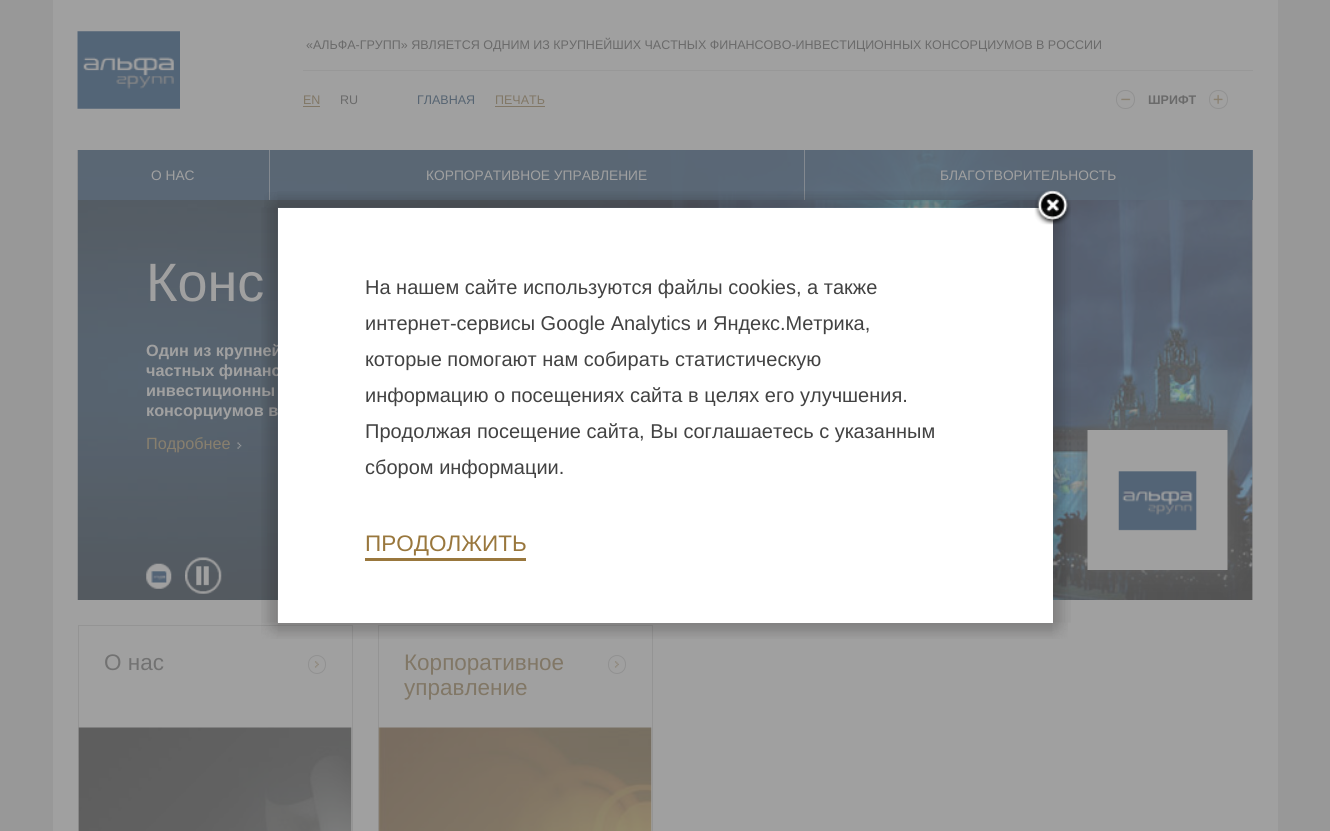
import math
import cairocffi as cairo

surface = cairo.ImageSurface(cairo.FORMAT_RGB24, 1330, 831)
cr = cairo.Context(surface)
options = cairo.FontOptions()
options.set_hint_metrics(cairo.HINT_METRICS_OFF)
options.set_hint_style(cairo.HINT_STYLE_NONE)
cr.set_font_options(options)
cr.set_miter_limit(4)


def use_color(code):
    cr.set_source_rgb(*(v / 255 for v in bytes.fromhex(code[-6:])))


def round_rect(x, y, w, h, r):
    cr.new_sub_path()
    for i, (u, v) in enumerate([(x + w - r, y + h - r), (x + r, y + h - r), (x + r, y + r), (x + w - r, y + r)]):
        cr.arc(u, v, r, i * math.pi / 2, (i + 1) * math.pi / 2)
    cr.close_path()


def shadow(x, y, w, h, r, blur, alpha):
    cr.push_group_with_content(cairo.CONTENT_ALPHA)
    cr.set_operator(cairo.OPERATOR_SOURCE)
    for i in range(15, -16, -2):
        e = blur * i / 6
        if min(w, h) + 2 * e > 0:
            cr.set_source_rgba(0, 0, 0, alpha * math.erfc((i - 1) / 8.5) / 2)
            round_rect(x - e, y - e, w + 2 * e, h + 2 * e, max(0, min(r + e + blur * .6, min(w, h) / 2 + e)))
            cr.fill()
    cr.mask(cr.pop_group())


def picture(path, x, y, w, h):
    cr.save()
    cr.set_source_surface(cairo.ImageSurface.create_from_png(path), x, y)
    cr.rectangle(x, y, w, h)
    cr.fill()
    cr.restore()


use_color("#989898")
cr.paint()
use_color("#a0a0a0")
cr.rectangle(53, 0, 1225, 831)
cr.fill()
picture("img1.png", 77, 31, 103, 78)
use_color("#989898")
cr.rectangle(303, 70, 950, 1)
cr.fill()
cr.select_font_face("Liberation Sans")
cr.set_font_size(12.5)
use_color("#6a6a6a")
cr.move_to(306, 49)
cr.show_text("«АЛЬФА-ГРУПП» ЯВЛЯЕТСЯ ОДНИМ ИЗ КРУПНЕЙШИХ ЧАСТНЫХ ФИНАНСОВО-ИНВЕСТИЦИОННЫХ КОНСОРЦИУМОВ В РОССИИ")
use_color("#817766")
cr.move_to(303, 104)
cr.show_text("EN")
cr.rectangle(303, 106, 17, 1)
cr.fill()
use_color("#6a6a6a")
cr.move_to(340, 104)
cr.show_text("RU")
use_color("#566472")
cr.move_to(417, 104)
cr.show_text("ГЛАВНАЯ")
use_color("#817766")
cr.move_to(495, 104)
cr.show_text("ПЕЧАТЬ")
cr.rectangle(495, 106, 50, 1)
cr.fill()
picture("img2.png", 1121, 98, 10, 3)
round_rect(1116.5, 90.5, 18, 18, 8.5)
use_color("#919191")
cr.set_line_width(1)
cr.stroke()
cr.select_font_face("Liberation Sans", cairo.FONT_SLANT_NORMAL, cairo.FONT_WEIGHT_BOLD)
use_color("#6a6a6a")
cr.move_to(1148, 104)
cr.show_text("ШРИФТ")
picture("img3.png", 1213, 94, 10, 10)
round_rect(1209.5, 90.5, 18, 18, 8.5)
use_color("#919191")
cr.stroke()
cr.rectangle(1252, 150, 1, 450)
cr.fill()
picture("img4.png", 77, 150, 1176, 450)
cr.set_source_rgba(0.357, 0.416, 0.478, 0.8)
cr.rectangle(78, 150, 1175, 50)
cr.fill()
cr.select_font_face("Liberation Sans")
cr.set_font_size(13.75)
use_color("#a0a0a0")
cr.move_to(151, 180)
cr.show_text("О НАС")
use_color("#838990")
cr.rectangle(269, 150, 1, 50)
cr.fill()
use_color("#a0a0a0")
cr.move_to(426, 180)
cr.show_text("КОРПОРАТИВНОЕ УПРАВЛЕНИЕ")
use_color("#838990")
cr.rectangle(804, 150, 1, 50)
cr.fill()
use_color("#a0a0a0")
cr.move_to(940, 180)
cr.show_text("БЛАГОТВОРИТЕЛЬНОСТЬ")
cr.set_font_size(54)
cr.move_to(146, 301)
cr.show_text("Конс")
cr.select_font_face("Liberation Sans", cairo.FONT_SLANT_NORMAL, cairo.FONT_WEIGHT_BOLD)
cr.set_font_size(16.25)
cr.move_to(146, 356)
cr.show_text("Один из крупней")
cr.move_to(146, 376)
cr.show_text("частных финанс")
cr.move_to(146, 396)
cr.show_text("инвестиционны")
cr.move_to(146, 416)
cr.show_text("консорциумов в")
cr.select_font_face("Liberation Sans")
use_color("#887f6e")
cr.move_to(146, 449)
cr.show_text("Подробнее")
picture("img5.png", 237, 442, 5, 7)
cr.save()
cr.rectangle(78, 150, 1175, 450)
cr.clip()
use_color("#636363")
shadow(1088, 430, 140, 140, 0, 12.5, 1)
cr.restore()
picture("img6.png", 1087, 430, 141, 140)
picture("img7.png", 146, 563, 26, 26)
picture("img8.png", 185, 557, 37, 37)
cr.rectangle(78.5, 625.5, 274, 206)
use_color("#949494")
cr.stroke()
cr.set_font_size(22.5)
use_color("#727272")
cr.move_to(104, 670)
cr.show_text("О нас")
picture("img9.png", 314, 661, 5, 7)
round_rect(308.5, 655.5, 17, 18, 8.5)
use_color("#919191")
cr.stroke()
picture("img10.png", 78, 727, 274, 104)
cr.rectangle(378.5, 625.5, 274, 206)
use_color("#949494")
cr.stroke()
use_color("#817766")
cr.move_to(404, 670)
cr.show_text("Корпоративное")
picture("img9.png", 614, 661, 5, 7)
round_rect(608.5, 655.5, 17, 18, 8.5)
use_color("#919191")
cr.stroke()
use_color("#817766")
cr.move_to(404, 695)
cr.show_text("управление")
picture("img11.png", 378, 727, 274, 104)
use_color("#ffffff")
cr.rectangle(291, 221, 749, 389)
cr.fill()
picture("img14.png", 277, 191, 776, 17)
picture("img15.png", 1052, 194, 14, 14)
picture("img17.png", 1052, 207, 19, 416)
picture("img20.png", 1052, 622, 16, 17)
picture("img19.png", 277, 622, 776, 17)
cr.rectangle(284.5, 214.5, 762, 402)
cr.set_line_width(13)
cr.stroke()
picture("img12.png", 1034, 190, 37, 35)
picture("img18.png", 261, 622, 17, 17)
picture("img16.png", 261, 207, 17, 416)
picture("img13.png", 264, 192, 14, 16)
cr.set_font_size(20)
use_color("#424242")
cr.move_to(365, 294)
cr.show_text("На нашем сайте используются файлы cookies, а также")
cr.move_to(365, 330)
cr.show_text("интернет-сервисы Google Analytics и Яндекс.Метрика,")
cr.move_to(365, 366)
cr.show_text("которые помогают нам собирать статистическую")
cr.move_to(365, 402)
cr.show_text("информацию о посещениях сайта в целях его улучшения.")
cr.move_to(365, 438)
cr.show_text("Продолжая посещение сайта, Вы соглашаетесь с указанным")
cr.move_to(365, 474)
cr.show_text("сбором информации.")
use_color("#99773d")
cr.rectangle(365, 558, 161, 3)
cr.fill()
cr.set_font_size(22.5)
cr.move_to(365, 551)
cr.show_text("ПРОДОЛЖИТЬ")
surface.write_to_png("result.png")
